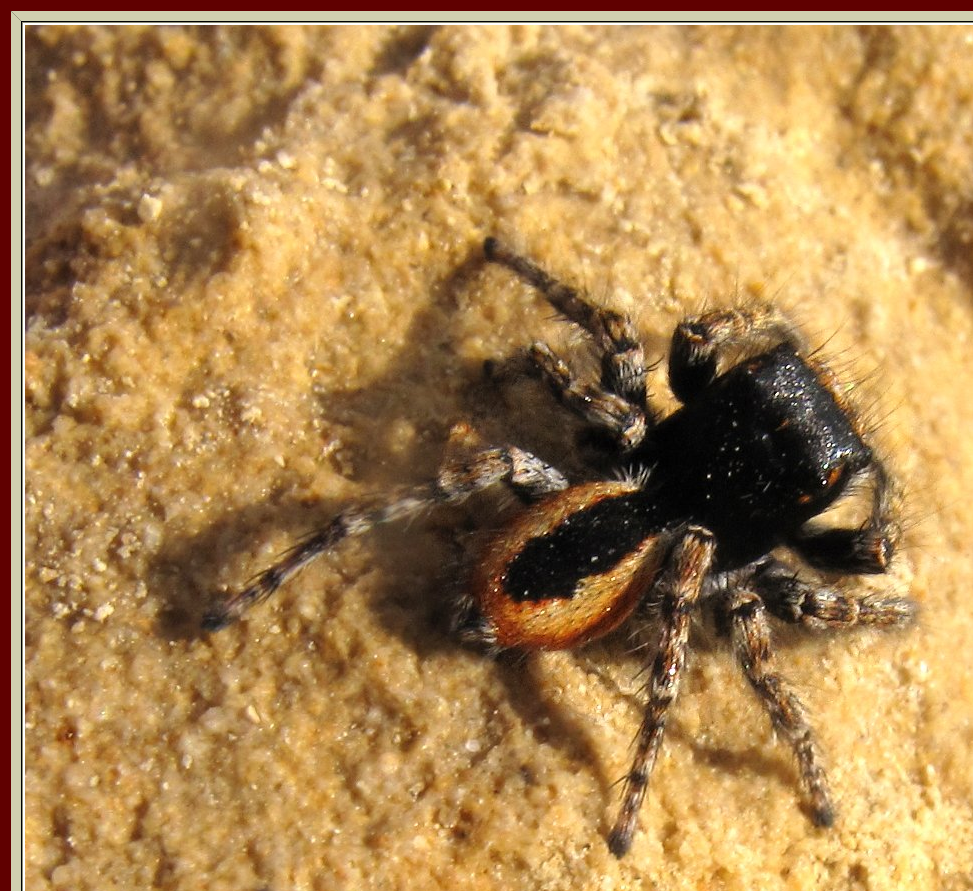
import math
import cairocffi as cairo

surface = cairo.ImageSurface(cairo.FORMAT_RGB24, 973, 891)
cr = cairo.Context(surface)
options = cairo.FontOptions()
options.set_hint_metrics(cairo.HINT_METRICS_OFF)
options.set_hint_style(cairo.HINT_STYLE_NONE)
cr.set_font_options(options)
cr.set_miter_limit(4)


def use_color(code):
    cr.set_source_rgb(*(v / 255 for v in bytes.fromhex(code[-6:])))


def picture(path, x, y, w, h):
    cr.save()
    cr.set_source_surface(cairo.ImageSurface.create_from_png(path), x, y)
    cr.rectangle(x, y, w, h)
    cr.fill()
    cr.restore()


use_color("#600000")
cr.paint()
use_color("#000000")
cr.rectangle(11, 11, 962, 880)
cr.fill()
use_color("#d0d0b0")
cr.new_path()
cr.move_to(11, 11)
cr.line_to(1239, 11)
cr.line_to(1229, 21)
cr.line_to(21, 21)
cr.close_path()
cr.fill()
cr.new_path()
cr.move_to(11, 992)
cr.line_to(11, 11)
cr.line_to(21, 21)
cr.line_to(21, 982)
cr.close_path()
cr.fill()
use_color("#8b8b75")
cr.rectangle(22, 22, 951, 1)
cr.fill()
cr.rectangle(22, 22, 1, 869)
cr.fill()
use_color("#ffffff")
cr.rectangle(23, 23, 950, 868)
cr.fill()
picture("img1.png", 25, 25, 948, 866)
surface.write_to_png("result.png")
